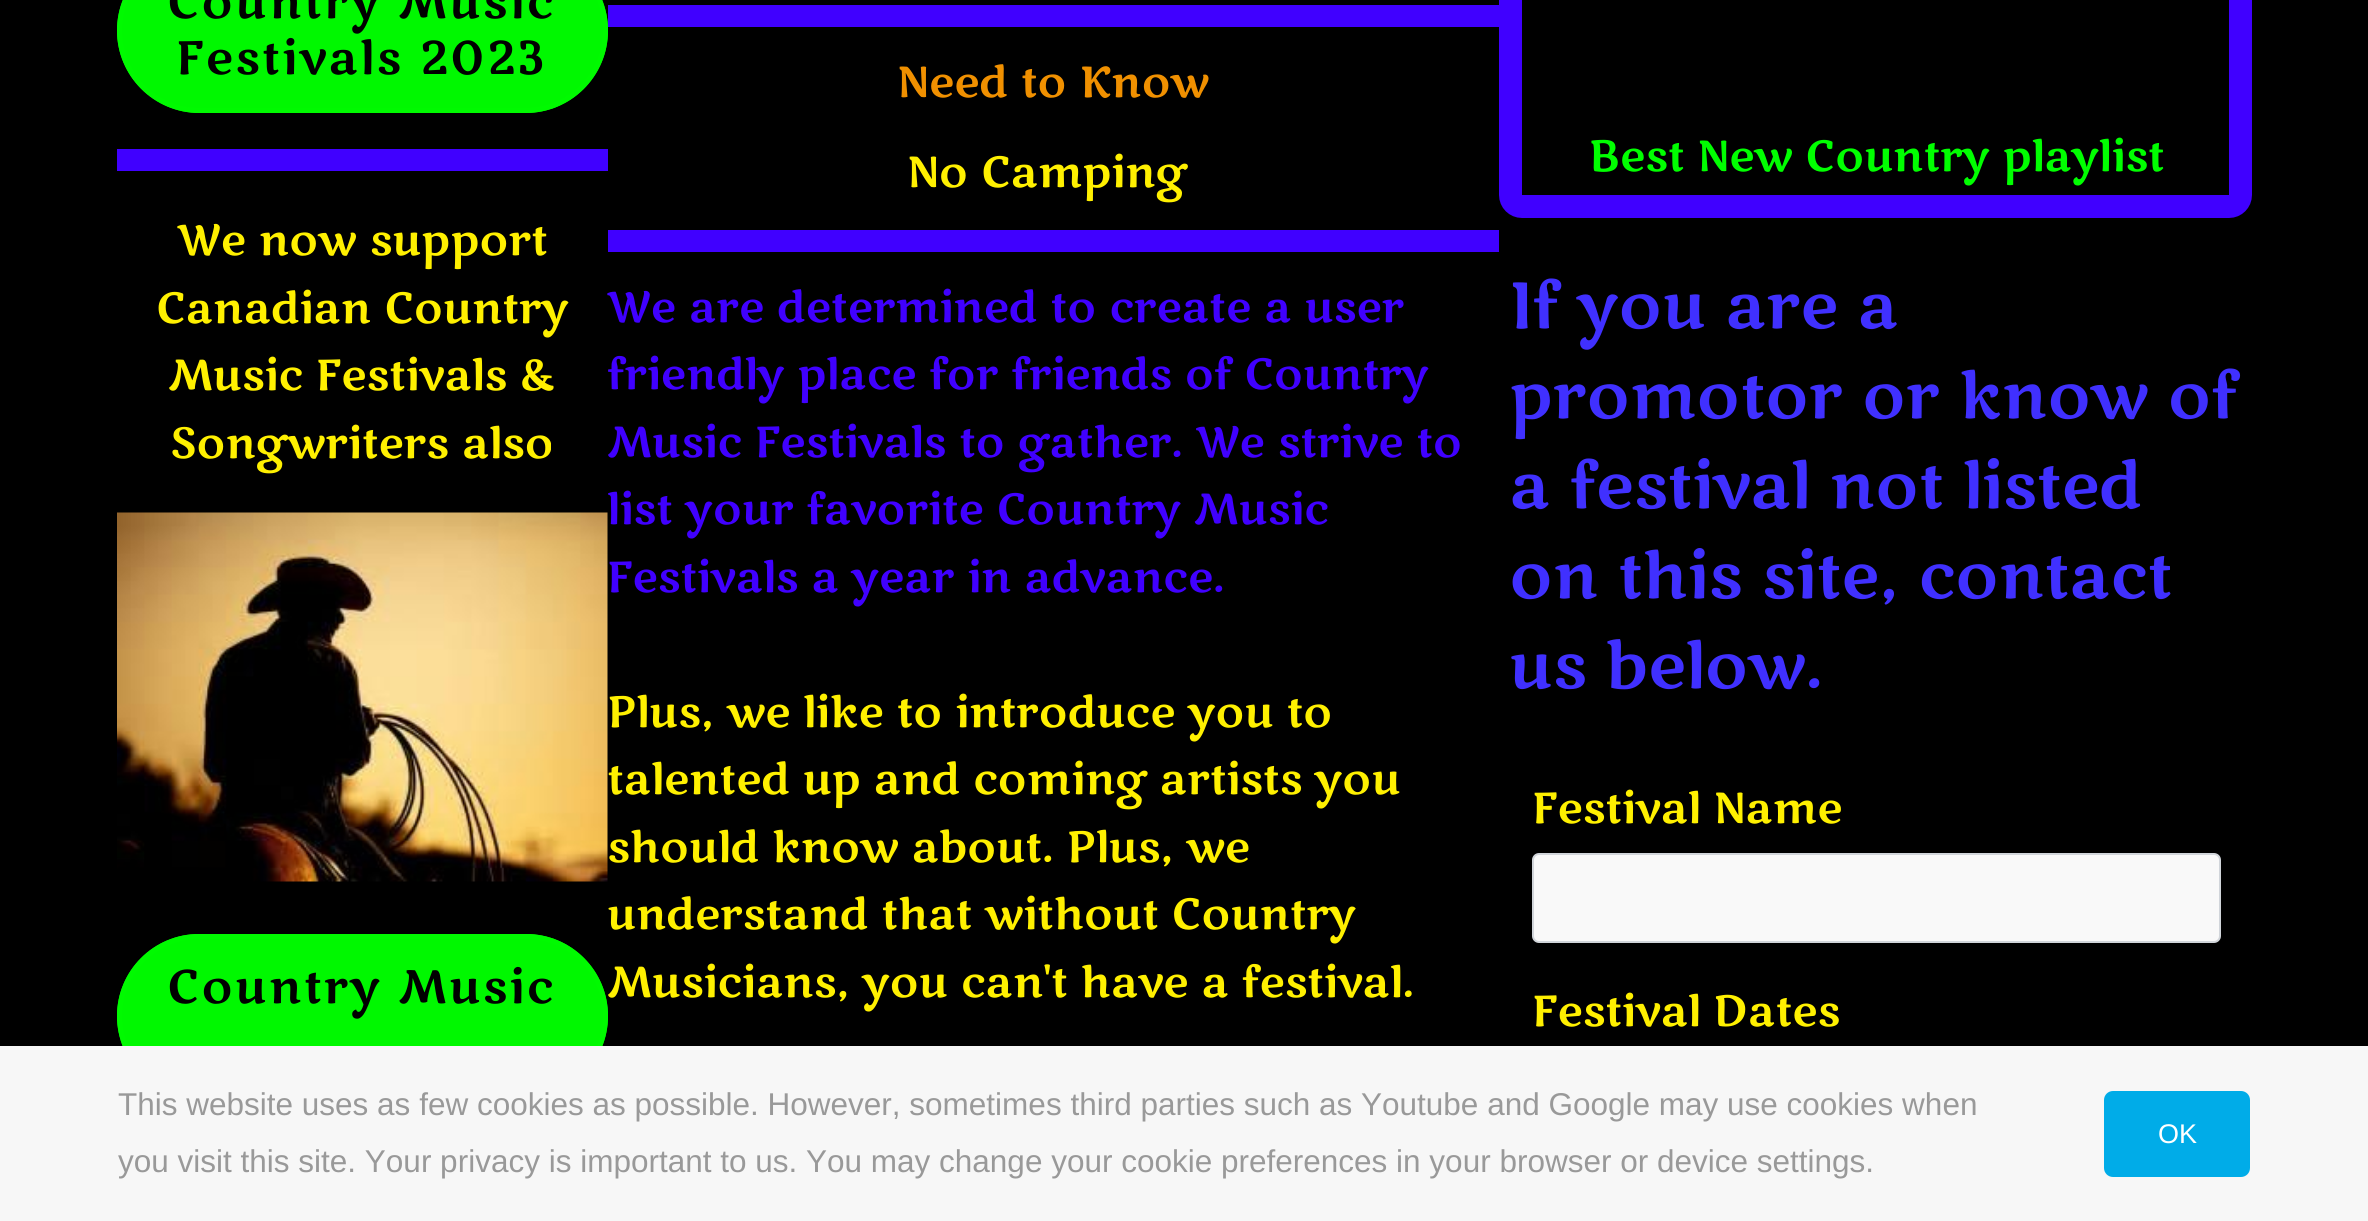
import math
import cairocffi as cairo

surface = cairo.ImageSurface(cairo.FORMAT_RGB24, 2368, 1221)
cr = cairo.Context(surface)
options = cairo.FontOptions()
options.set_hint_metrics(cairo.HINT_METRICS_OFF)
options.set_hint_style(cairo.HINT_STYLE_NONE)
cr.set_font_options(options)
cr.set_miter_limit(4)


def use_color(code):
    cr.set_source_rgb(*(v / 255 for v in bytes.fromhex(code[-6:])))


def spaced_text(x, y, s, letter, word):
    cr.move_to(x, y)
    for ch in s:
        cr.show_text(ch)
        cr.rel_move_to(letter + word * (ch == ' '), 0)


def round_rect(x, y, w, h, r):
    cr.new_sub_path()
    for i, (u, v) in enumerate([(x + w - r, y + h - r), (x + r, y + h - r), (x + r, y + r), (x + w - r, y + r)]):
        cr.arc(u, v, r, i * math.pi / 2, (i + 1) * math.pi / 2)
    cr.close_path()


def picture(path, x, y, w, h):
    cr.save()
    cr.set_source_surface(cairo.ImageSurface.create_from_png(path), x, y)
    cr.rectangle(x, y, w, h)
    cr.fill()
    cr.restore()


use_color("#000000")
cr.paint()
use_color("#00f800")
round_rect(117, -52, 491, 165, 82.5)
cr.fill()
round_rect(119.5, -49.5, 486, 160, 80)
cr.set_source_rgba(0, 0.98, 0, 0.99)
cr.set_line_width(5)
cr.stroke()
cr.select_font_face("Marko One")
cr.set_font_size(46.75)
use_color("#000000")
spaced_text(167, 18, "Country Music", 2.25, 0)
spaced_text(176, 74, "Festivals 2023", 2.25, 0)
use_color("#4000ff")
cr.rectangle(117, 149, 491, 22)
cr.fill()
cr.set_font_size(43.25)
use_color("#fff000")
cr.move_to(177, 255)
cr.show_text("We now support")
cr.move_to(156, 323)
cr.show_text("Canadian Country")
cr.move_to(168, 390)
cr.show_text("Music Festivals &")
cr.move_to(170, 458)
cr.show_text("Songwriters also")
picture("img1.png", 117, 512, 491, 370)
use_color("#00f800")
round_rect(117, 934, 491, 164, 82)
cr.fill()
round_rect(119.5, 936.5, 486, 159, 79.5)
cr.set_source_rgba(0, 0.98, 0, 0.99)
cr.stroke()
cr.set_font_size(46.75)
use_color("#000000")
spaced_text(167, 1003, "Country Music", 2.25, 0)
use_color("#4000ff")
cr.rectangle(608, 5, 891, 22)
cr.fill()
cr.set_font_size(43.25)
use_color("#f09000")
cr.move_to(897, 97)
cr.show_text("Need to Know")
use_color("#fff000")
cr.move_to(907, 187)
cr.show_text("No Camping")
use_color("#4000ff")
cr.rectangle(608, 230, 891, 22)
cr.fill()
cr.move_to(607, 322)
cr.show_text("We are determined to create a user")
cr.move_to(607, 389)
cr.show_text("friendly place for friends of Country")
cr.move_to(607, 457)
cr.show_text("Music Festivals to gather. We strive to")
cr.move_to(607, 524)
cr.show_text("list your favorite Country Music")
cr.move_to(607, 592)
cr.show_text("Festivals a year in advance.")
use_color("#fff000")
cr.move_to(607, 727)
cr.show_text("Plus, we like to introduce you to")
cr.move_to(607, 794)
cr.show_text("talented up and coming artists you")
cr.move_to(607, 862)
cr.show_text("should know about. Plus, we")
cr.move_to(607, 929)
cr.show_text("understand that without Country")
cr.move_to(607, 997)
cr.show_text("Musicians, you can't have a festival.")
round_rect(1510.5, -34.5, 730, 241, 11.5)
use_color("#4000ff")
cr.set_line_width(23)
cr.stroke()
use_color("#00ff00")
cr.move_to(1589, 171)
cr.show_text("Best New Country playlist")
cr.set_font_size(64.75)
use_color("#4030ff")
cr.move_to(1509, 328)
cr.show_text("If you are a")
cr.move_to(1509, 418)
cr.show_text("promotor or know of")
cr.move_to(1509, 508)
cr.show_text("a festival not listed")
cr.move_to(1509, 598)
cr.show_text("on this site, contact")
cr.move_to(1509, 688)
cr.show_text("us below.")
cr.set_font_size(43.25)
use_color("#fff000")
cr.move_to(1532, 823)
cr.show_text("Festival Name")
use_color("#f9f9f9")
round_rect(1533, 854, 687, 88, 6)
cr.fill_preserve()
use_color("#d1d5da")
cr.set_line_width(2)
cr.stroke()
use_color("#fff000")
cr.move_to(1532, 1026)
cr.show_text("Festival Dates")
use_color("#f7f7f7")
cr.rectangle(0, 1046, 2368, 175)
cr.fill()
cr.select_font_face("Liberation Sans")
cr.set_font_size(31.5)
use_color("#999999")
cr.move_to(118, 1115)
cr.show_text("This website uses as few cookies as possible. However, sometimes third parties such as Youtube and Google may use cookies when")
cr.move_to(118, 1172)
cr.show_text("you visit this site. Your privacy is important to us. You may change your cookie preferences in your browser or device settings.")
use_color("#00ace8")
round_rect(2104, 1091, 146, 86, 9)
cr.fill()
cr.set_font_size(27)
use_color("#ffffff")
cr.move_to(2158, 1143)
cr.show_text("OK")
surface.write_to_png("result.png")
